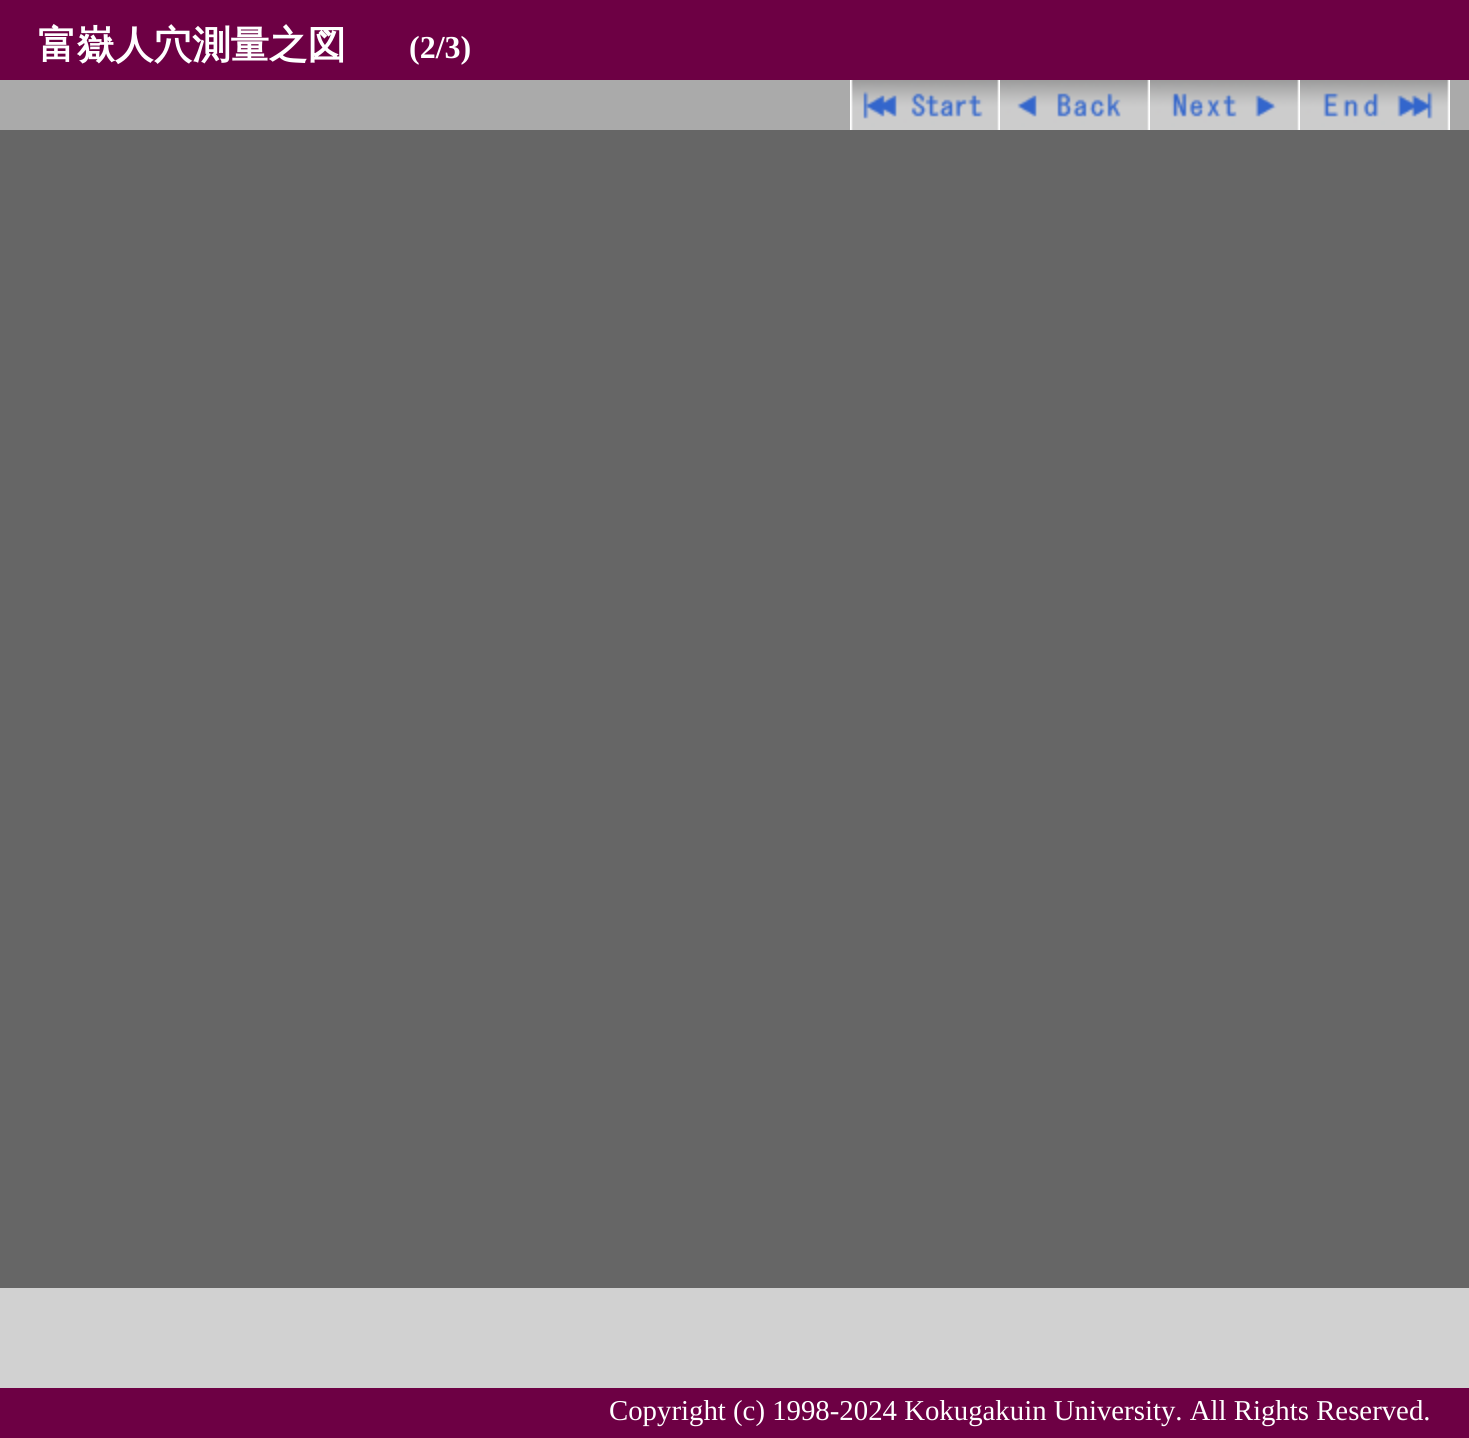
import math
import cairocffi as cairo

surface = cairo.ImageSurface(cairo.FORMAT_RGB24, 1469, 1438)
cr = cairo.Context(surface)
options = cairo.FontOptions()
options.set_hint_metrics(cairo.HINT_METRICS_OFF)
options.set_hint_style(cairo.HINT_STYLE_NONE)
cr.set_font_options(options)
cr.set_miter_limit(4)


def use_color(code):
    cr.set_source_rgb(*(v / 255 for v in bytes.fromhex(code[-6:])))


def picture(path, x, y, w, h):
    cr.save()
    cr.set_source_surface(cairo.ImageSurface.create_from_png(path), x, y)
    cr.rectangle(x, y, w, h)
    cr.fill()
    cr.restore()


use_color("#6d0044")
cr.paint()
cr.select_font_face("WenQuanYi Zen Hei", cairo.FONT_SLANT_NORMAL, cairo.FONT_WEIGHT_BOLD)
cr.set_font_size(38.5)
use_color("#ffffff")
cr.move_to(38, 58)
cr.show_text("富嶽人穴測量之図")
cr.select_font_face("Liberation Serif", cairo.FONT_SLANT_NORMAL, cairo.FONT_WEIGHT_BOLD)
cr.set_font_size(32)
cr.move_to(409, 58)
cr.show_text("(2/3)")
use_color("#aaaaaa")
cr.rectangle(0, 80, 1469, 50)
cr.fill()
picture("img1.png", 850, 80, 150, 50)
picture("img2.png", 1000, 80, 150, 50)
picture("img3.png", 1150, 80, 150, 50)
picture("img4.png", 1300, 80, 150, 50)
use_color("#666666")
cr.rectangle(0, 130, 1469, 1158)
cr.fill()
use_color("#d1d1d1")
cr.rectangle(0, 1288, 1469, 100)
cr.fill()
cr.select_font_face("Liberation Serif")
cr.set_font_size(28.8)
use_color("#ffffff")
cr.move_to(609, 1420)
cr.show_text("Copyright (c) 1998-2024 Kokugakuin University. All Rights Reserved.")
surface.write_to_png("result.png")
